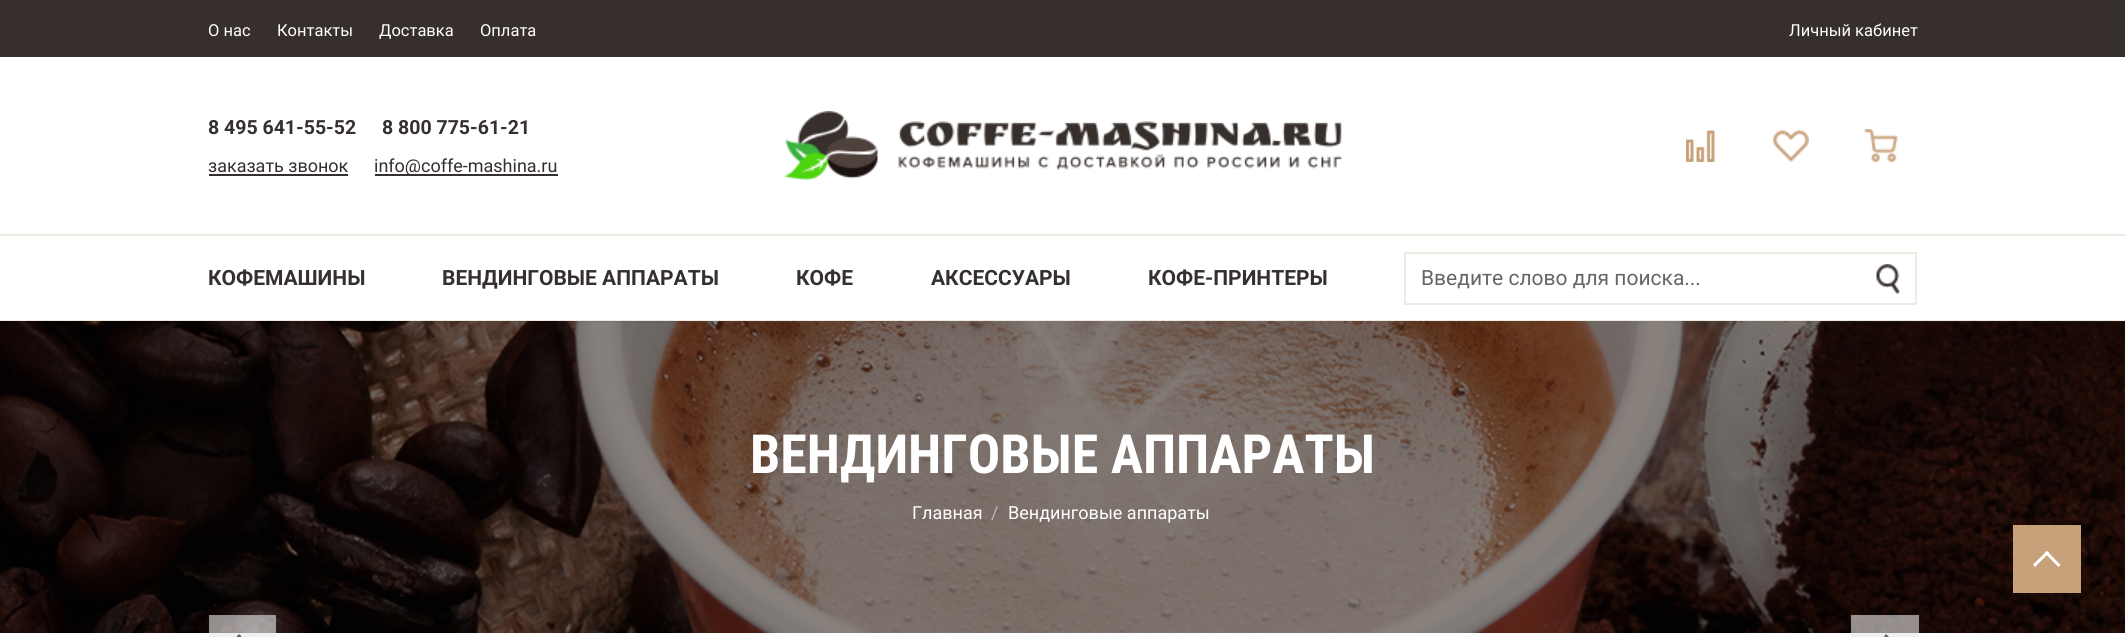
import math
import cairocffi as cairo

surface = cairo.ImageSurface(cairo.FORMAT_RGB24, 2125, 637)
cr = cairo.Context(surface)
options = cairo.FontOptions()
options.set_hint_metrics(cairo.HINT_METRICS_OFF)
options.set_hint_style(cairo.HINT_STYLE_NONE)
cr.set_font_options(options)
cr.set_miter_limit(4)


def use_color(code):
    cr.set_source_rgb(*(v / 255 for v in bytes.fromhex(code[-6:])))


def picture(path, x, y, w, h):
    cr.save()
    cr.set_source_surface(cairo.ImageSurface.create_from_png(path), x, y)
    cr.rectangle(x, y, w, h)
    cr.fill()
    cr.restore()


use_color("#ffffff")
cr.paint()
use_color("#372f2c")
cr.rectangle(0, 0, 2125, 57)
cr.fill()
cr.select_font_face("Roboto")
cr.set_font_size(16.5)
use_color("#ffffff")
cr.move_to(208, 36)
cr.show_text("О нас")
cr.move_to(277, 36)
cr.show_text("Контакты")
cr.move_to(379, 36)
cr.show_text("Доставка")
cr.move_to(480, 36)
cr.show_text("Оплата")
cr.move_to(1789, 36)
cr.show_text("Личный кабинет")
cr.select_font_face("Roboto", cairo.FONT_SLANT_NORMAL, cairo.FONT_WEIGHT_BOLD)
cr.set_font_size(19.5)
use_color("#352f2f")
cr.move_to(208, 134)
cr.show_text("8 495 641-55-52")
cr.move_to(382, 134)
cr.show_text("8 800 775-61-21")
cr.select_font_face("Roboto")
cr.set_font_size(18)
cr.move_to(208, 172)
cr.show_text("заказать звонок")
cr.rectangle(209, 174, 139, 2)
cr.fill()
cr.rectangle(375, 174, 183, 2)
cr.fill()
cr.move_to(374, 172)
cr.show_text("info@coffe-mashina.ru")
picture("img1.png", 784, 111, 559, 69)
picture("img2.png", 1686, 130, 29, 32)
picture("img3.png", 1773, 130, 36, 32)
picture("img4.png", 1864, 129, 34, 33)
use_color("#eeebe2")
cr.rectangle(0, 234, 2125, 2)
cr.fill()
cr.rectangle(0, 320, 2125, 1)
cr.fill()
cr.select_font_face("Roboto", cairo.FONT_SLANT_NORMAL, cairo.FONT_WEIGHT_BOLD)
cr.set_font_size(21)
use_color("#352f2f")
cr.move_to(208, 285)
cr.show_text("КОФЕМАШИНЫ")
cr.move_to(442, 285)
cr.show_text("ВЕНДИНГОВЫЕ АППАРАТЫ")
cr.move_to(796, 285)
cr.show_text("КОФЕ")
cr.move_to(931, 285)
cr.show_text("АКСЕССУАРЫ")
cr.move_to(1148, 285)
cr.show_text("КОФЕ-ПРИНТЕРЫ")
cr.rectangle(1405, 253, 511, 51)
use_color("#eeebe2")
cr.stroke()
cr.select_font_face("Roboto")
use_color("#66656a")
cr.move_to(1421, 285)
cr.show_text("Введите слово для поиска...")
picture("img5.png", 1876, 264, 24, 30)
picture("img6.png", 0, 321, 2125, 312)
cr.select_font_face("Roboto Condensed", cairo.FONT_SLANT_NORMAL, cairo.FONT_WEIGHT_BOLD)
cr.set_font_size(54)
use_color("#ffffff")
cr.move_to(750, 473)
cr.show_text("ВЕНДИНГОВЫЕ АППАРАТЫ")
cr.select_font_face("Roboto")
cr.set_font_size(18)
cr.move_to(912, 519)
cr.show_text("Главная")
use_color("#b9b9b9")
cr.move_to(991, 519)
cr.show_text("/")
use_color("#ffffff")
cr.move_to(1008, 519)
cr.show_text("Вендинговые аппараты")
cr.set_source_rgba(0.91, 0.91, 0.91, 0.6)
cr.rectangle(209, 615, 67, 22)
cr.fill()
use_color("#666666")
cr.new_path()
cr.move_to(225.5, 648)
cr.line_to(239, 634)
cr.line_to(241.5, 636.5)
cr.line_to(227.5, 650)
cr.close_path()
cr.fill()
cr.set_source_rgba(0.91, 0.91, 0.91, 0.6)
cr.rectangle(1851, 615, 68, 22)
cr.fill()
use_color("#666666")
cr.new_path()
cr.move_to(1900, 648)
cr.line_to(1898, 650)
cr.line_to(1884, 636.5)
cr.line_to(1886, 634)
cr.close_path()
cr.fill()
use_color("#c7a17a")
cr.rectangle(2013, 525, 68, 68)
cr.fill()
use_color("#ffffff")
cr.new_path()
cr.move_to(2047, 551)
cr.line_to(2060.5, 565)
cr.line_to(2058.5, 567)
cr.line_to(2044.5, 553)
cr.close_path()
cr.fill()
cr.new_path()
cr.move_to(2047, 551)
cr.line_to(2049, 553)
cr.line_to(2035, 567)
cr.line_to(2033, 564.5)
cr.close_path()
cr.fill()
surface.write_to_png("result.png")
